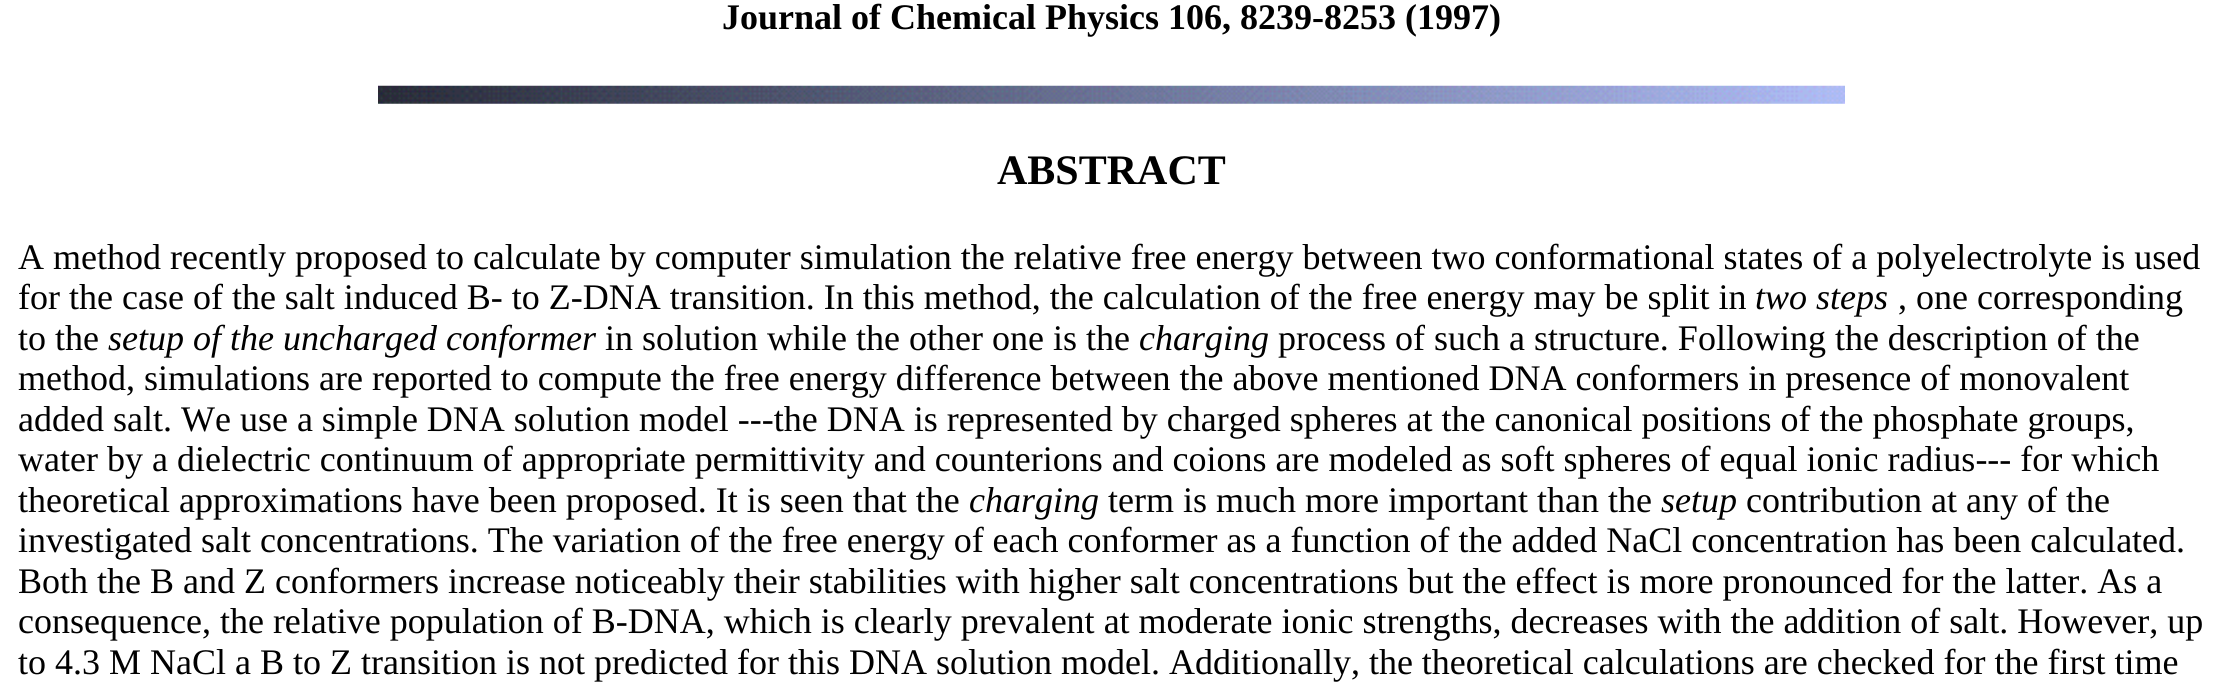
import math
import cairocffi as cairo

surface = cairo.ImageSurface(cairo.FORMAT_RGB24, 2222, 691)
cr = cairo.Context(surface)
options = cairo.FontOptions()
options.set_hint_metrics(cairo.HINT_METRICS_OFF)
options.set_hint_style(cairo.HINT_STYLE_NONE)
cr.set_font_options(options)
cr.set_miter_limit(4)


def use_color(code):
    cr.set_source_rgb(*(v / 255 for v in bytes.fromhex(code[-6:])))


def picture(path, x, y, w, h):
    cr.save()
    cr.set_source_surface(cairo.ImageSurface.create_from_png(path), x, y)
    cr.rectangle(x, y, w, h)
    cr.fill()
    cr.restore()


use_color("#ffffff")
cr.paint()
cr.select_font_face("Liberation Serif", cairo.FONT_SLANT_NORMAL, cairo.FONT_WEIGHT_BOLD)
cr.set_font_size(36)
use_color("#000000")
cr.move_to(722, 29)
cr.show_text("Journal of Chemical Physics 106, 8239-8253 (1997)")
picture("img1.png", 378, 85, 1467, 19)
cr.set_font_size(42)
cr.move_to(997, 184)
cr.show_text("ABSTRACT")
cr.select_font_face("Liberation Serif")
cr.set_font_size(36)
cr.move_to(18, 269)
cr.show_text("A method recently proposed to calculate by computer simulation the relative free energy between two conformational states of a polyelectrolyte is used")
cr.move_to(18, 309)
cr.show_text("for the case of the salt induced B- to Z-DNA transition. In this method, the calculation of the free energy may be split in")
cr.select_font_face("Liberation Serif", cairo.FONT_SLANT_ITALIC)
cr.move_to(1755, 309)
cr.show_text("two steps")
cr.select_font_face("Liberation Serif")
cr.move_to(1898, 309)
cr.show_text(", one corresponding")
cr.move_to(18, 350)
cr.show_text("to the")
cr.select_font_face("Liberation Serif", cairo.FONT_SLANT_ITALIC)
cr.move_to(108, 350)
cr.show_text("setup of the uncharged conformer")
cr.select_font_face("Liberation Serif")
cr.move_to(605, 350)
cr.show_text("in solution while the other one is the")
cr.select_font_face("Liberation Serif", cairo.FONT_SLANT_ITALIC)
cr.move_to(1139, 350)
cr.show_text("charging")
cr.select_font_face("Liberation Serif")
cr.move_to(1278, 350)
cr.show_text("process of such a structure. Following the description of the")
cr.move_to(18, 390)
cr.show_text("method, simulations are reported to compute the free energy difference between the above mentioned DNA conformers in presence of monovalent")
cr.move_to(18, 431)
cr.show_text("added salt. We use a simple DNA solution model ---the DNA is represented by charged spheres at the canonical positions of the phosphate groups,")
cr.move_to(18, 471)
cr.show_text("water by a dielectric continuum of appropriate permittivity and counterions and coions are modeled as soft spheres of equal ionic radius--- for which")
cr.move_to(18, 512)
cr.show_text("theoretical approximations have been proposed. It is seen that the")
cr.select_font_face("Liberation Serif", cairo.FONT_SLANT_ITALIC)
cr.move_to(969, 512)
cr.show_text("charging")
cr.select_font_face("Liberation Serif")
cr.move_to(1108, 512)
cr.show_text("term is much more important than the")
cr.select_font_face("Liberation Serif", cairo.FONT_SLANT_ITALIC)
cr.move_to(1661, 512)
cr.show_text("setup")
cr.select_font_face("Liberation Serif")
cr.move_to(1746, 512)
cr.show_text("contribution at any of the")
cr.move_to(18, 552)
cr.show_text("investigated salt concentrations. The variation of the free energy of each conformer as a function of the added NaCl concentration has been calculated.")
cr.move_to(18, 593)
cr.show_text("Both the B and Z conformers increase noticeably their stabilities with higher salt concentrations but the effect is more pronounced for the latter. As a")
cr.move_to(18, 633)
cr.show_text("consequence, the relative population of B-DNA, which is clearly prevalent at moderate ionic strengths, decreases with the addition of salt. However, up")
cr.move_to(18, 674)
cr.show_text("to 4.3 M NaCl a B to Z transition is not predicted for this DNA solution model. Additionally, the theoretical calculations are checked for the first time")
surface.write_to_png("result.png")
